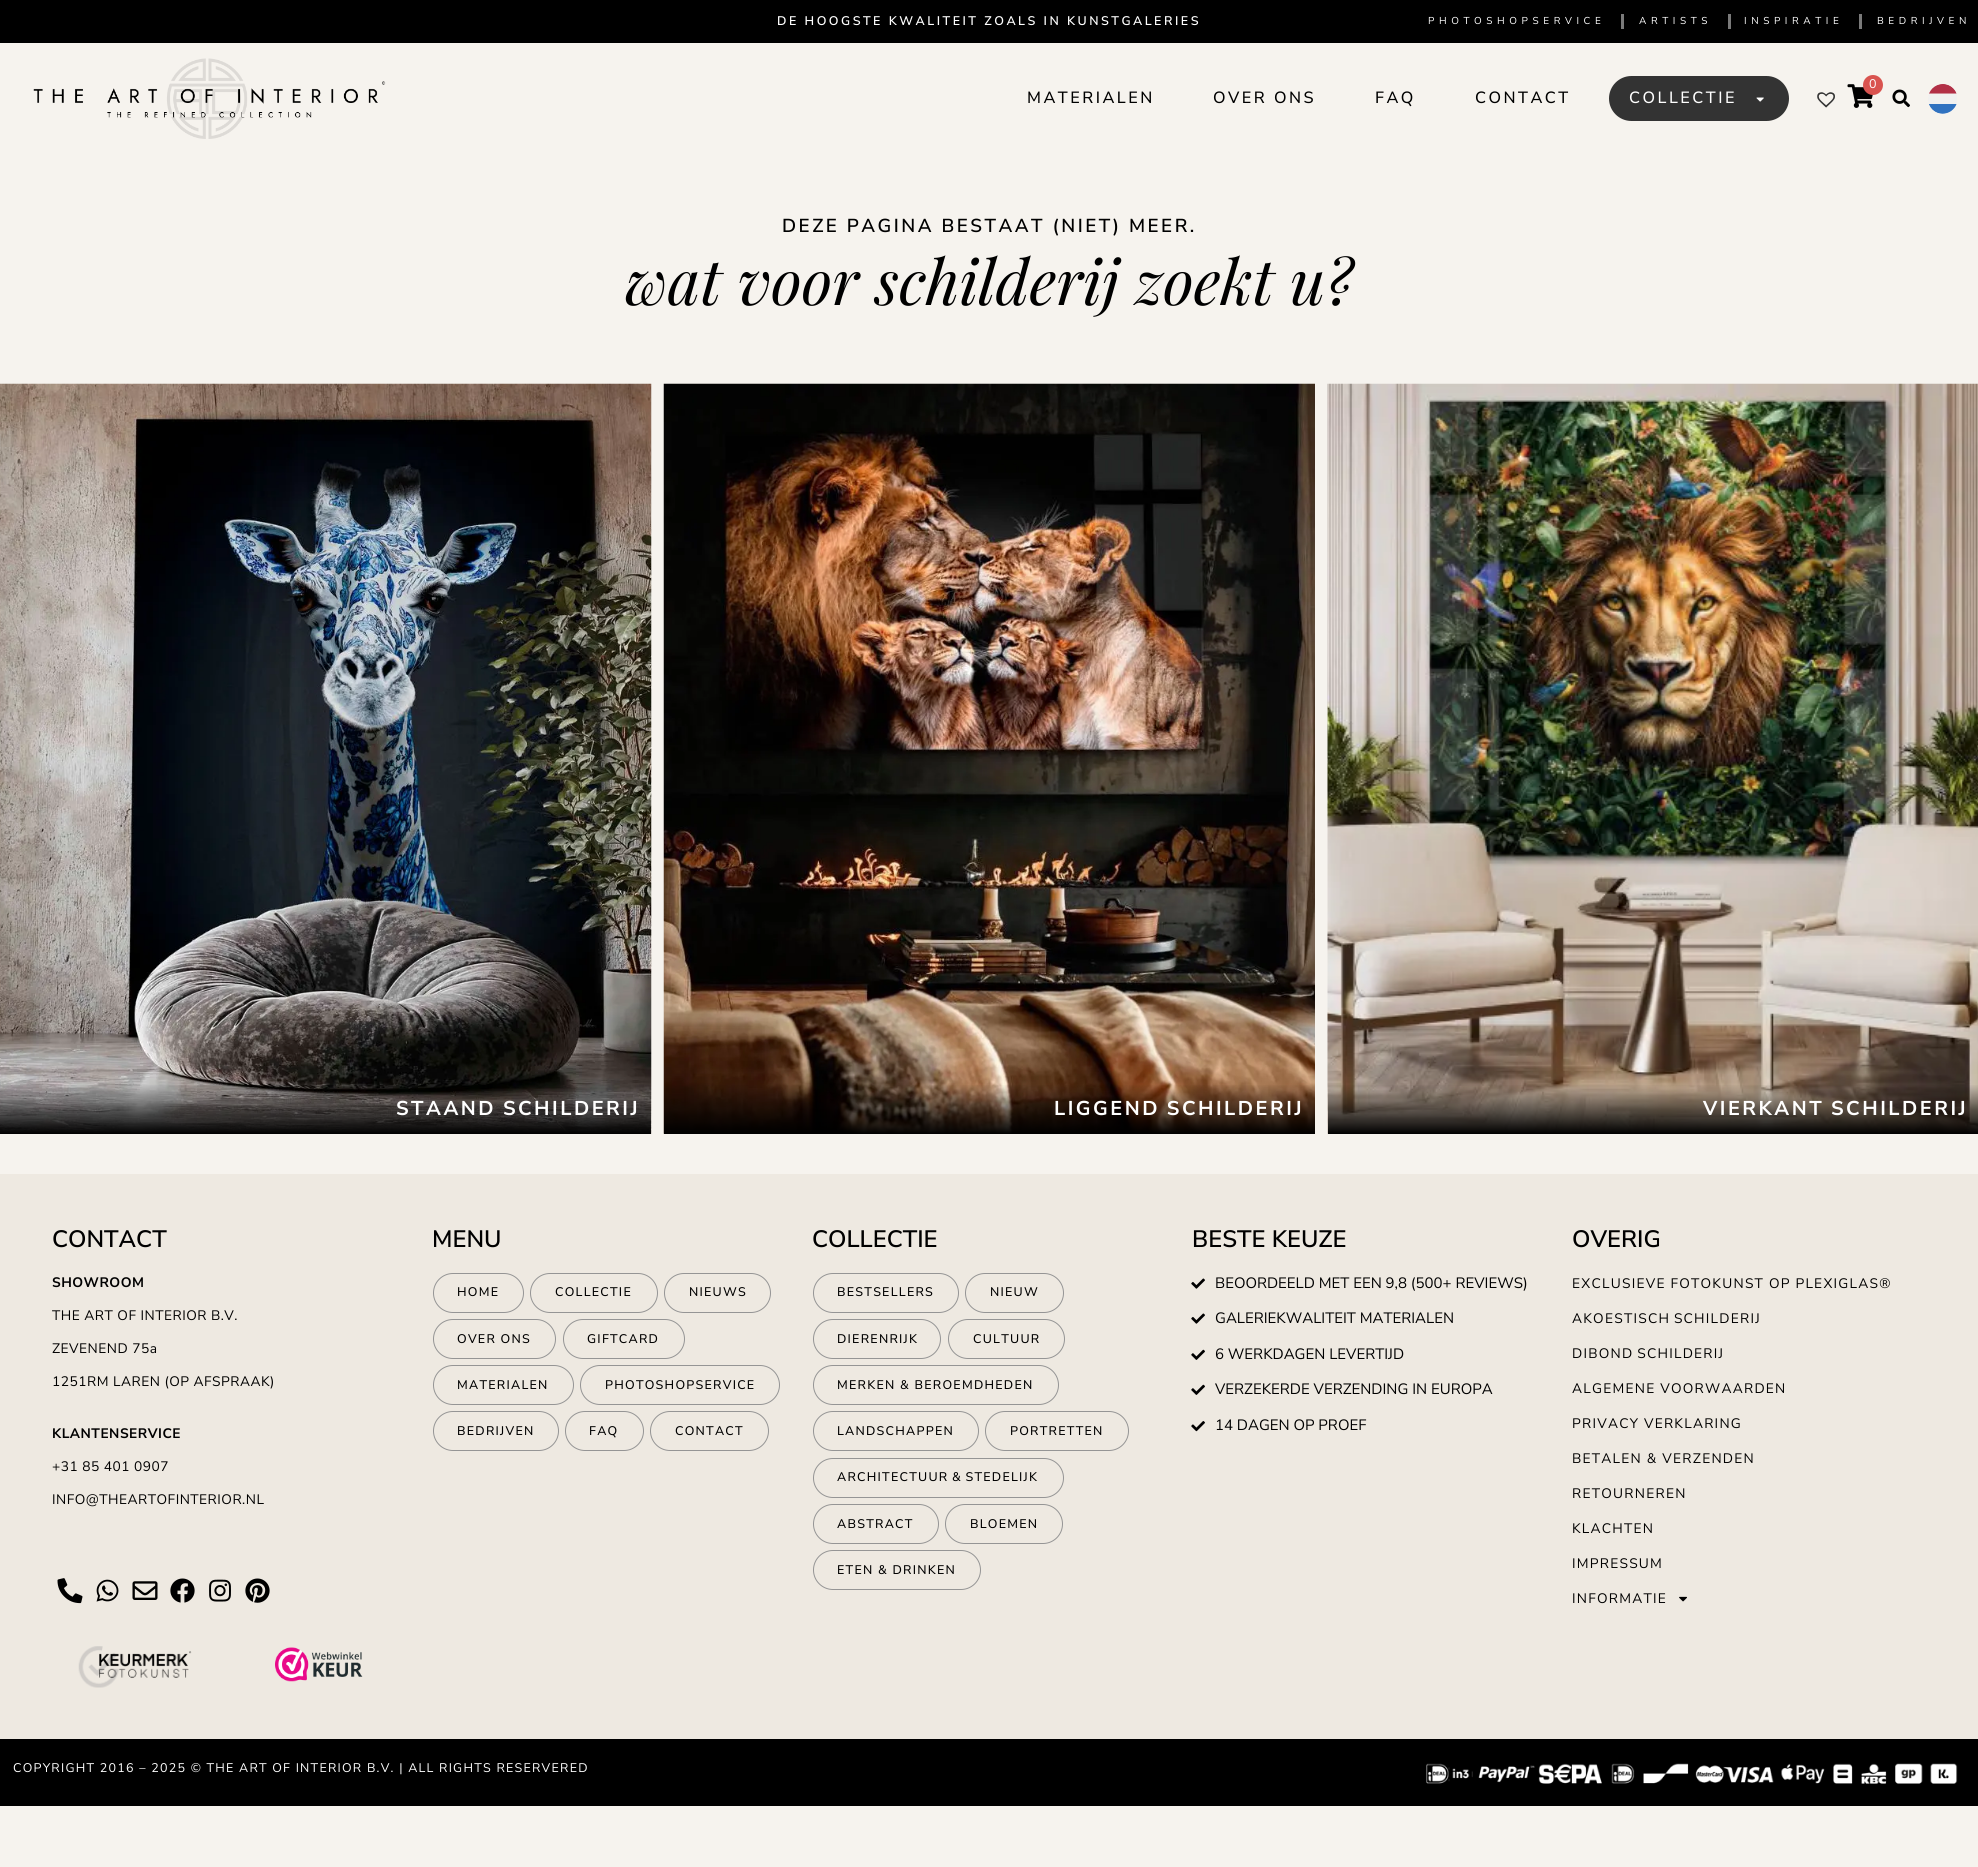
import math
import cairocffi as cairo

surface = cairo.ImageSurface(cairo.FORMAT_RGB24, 1978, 1867)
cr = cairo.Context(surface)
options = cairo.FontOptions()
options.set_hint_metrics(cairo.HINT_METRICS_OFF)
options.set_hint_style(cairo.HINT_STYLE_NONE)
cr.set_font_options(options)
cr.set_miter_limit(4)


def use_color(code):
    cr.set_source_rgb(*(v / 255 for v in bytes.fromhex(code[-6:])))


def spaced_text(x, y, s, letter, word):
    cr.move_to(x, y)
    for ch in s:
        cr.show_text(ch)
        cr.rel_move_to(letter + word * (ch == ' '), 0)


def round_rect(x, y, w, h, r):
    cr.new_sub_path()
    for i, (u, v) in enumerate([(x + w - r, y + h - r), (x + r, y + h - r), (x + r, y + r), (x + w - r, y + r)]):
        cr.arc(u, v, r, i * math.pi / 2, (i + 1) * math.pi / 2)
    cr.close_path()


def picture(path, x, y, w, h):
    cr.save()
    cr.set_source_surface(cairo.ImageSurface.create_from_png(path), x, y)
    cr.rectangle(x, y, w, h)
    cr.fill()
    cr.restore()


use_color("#f6f3ee")
cr.paint()
use_color("#000000")
cr.rectangle(0, 0, 1978, 43)
cr.fill()
cr.select_font_face("Nunito Sans SemiBold")
cr.set_font_size(12.5)
use_color("#ffffff")
spaced_text(777, 25, "DE HOOGSTE KWALITEIT ZOALS IN KUNSTGALERIES", 2.5, 0)
cr.select_font_face("Nunito Sans")
cr.set_font_size(10)
spaced_text(1428, 24, "PHOTOSHOPSERVICE", 4.6, 0)
use_color("#7a7a7a")
cr.rectangle(1621, 14, 3, 15)
cr.fill()
use_color("#ffffff")
spaced_text(1639, 24, "ARTISTS", 4.6, 0)
use_color("#7a7a7a")
cr.rectangle(1728, 14, 3, 15)
cr.fill()
use_color("#ffffff")
spaced_text(1744, 24, "INSPIRATIE", 4.6, 0)
use_color("#7a7a7a")
cr.rectangle(1859, 14, 3, 15)
cr.fill()
use_color("#ffffff")
spaced_text(1877, 24, "BEDRIJVEN", 4.6, 0)
picture("img1.png", 33, 58, 353, 81)
picture("img2.png", 1817, 92, 18, 16)
picture("img3.png", 1847, 84, 26, 24)
use_color("#d9534f")
cr.arc(1873, 85, 10, 0, 2 * math.pi)
cr.fill()
cr.set_font_size(12.5)
use_color("#ffffff")
cr.move_to(1869, 88)
cr.show_text("0")
picture("img4.png", 1892, 89, 18, 19)
picture("img5.png", 1928, 84, 29, 30)
cr.select_font_face("Nunito Sans Medium")
cr.set_font_size(16.25)
use_color("#000000")
spaced_text(1027, 103, "MATERIALEN", 2.5, 0)
spaced_text(1213, 103, "OVER ONS", 2.5, 0)
spaced_text(1375, 103, "FAQ", 2.5, 0)
spaced_text(1475, 103, "CONTACT", 2.5, 0)
use_color("#333333")
round_rect(1609, 76, 180, 45, 22.5)
cr.fill()
use_color("#ffffff")
spaced_text(1629, 103, "COLLECTIE", 2.5, 0)
picture("img6.png", 1756, 97, 8, 5)
cr.select_font_face("Nunito Sans SemiBold")
cr.set_font_size(18.75)
use_color("#000000")
spaced_text(782, 232, "DEZE PAGINA BESTAAT (NIET) MEER.", 2.5, 0)
cr.select_font_face("Playfair Display", cairo.FONT_SLANT_ITALIC)
cr.set_font_size(62.5)
spaced_text(625, 305, "wat voor schilderij zoekt u?", 0, 0.5)
picture("img7.png", 0, 383, 652, 751)
gradient = cairo.LinearGradient(326, 1084, 326, 1134)
gradient.add_color_stop_rgba(0, 0, 0, 0, 0)
gradient.add_color_stop_rgba(1, 0, 0, 0, 1)
cr.set_source(gradient)
cr.rectangle(0, 1085, 651, 49)
cr.fill()
cr.select_font_face("Nunito Sans", cairo.FONT_SLANT_NORMAL, cairo.FONT_WEIGHT_BOLD)
cr.set_font_size(20)
use_color("#ffffff")
spaced_text(396, 1115, "STAAND SCHILDERIJ", 2.5, -1)
picture("img8.png", 663, 383, 652, 751)
gradient = cairo.LinearGradient(989, 1084, 989, 1134)
gradient.add_color_stop_rgba(0, 0, 0, 0, 0)
gradient.add_color_stop_rgba(1, 0, 0, 0, 1)
cr.set_source(gradient)
cr.rectangle(664, 1085, 651, 49)
cr.fill()
use_color("#ffffff")
spaced_text(1054, 1115, "LIGGEND SCHILDERIJ", 2.5, -1)
picture("img9.png", 1327, 383, 651, 751)
gradient = cairo.LinearGradient(1653, 1084, 1653, 1134)
gradient.add_color_stop_rgba(0, 0, 0, 0, 0)
gradient.add_color_stop_rgba(1, 0, 0, 0, 1)
cr.set_source(gradient)
cr.rectangle(1328, 1085, 650, 49)
cr.fill()
use_color("#ffffff")
spaced_text(1703, 1115, "VIERKANT SCHILDERIJ", 2.5, -1)
use_color("#eee9e1")
cr.rectangle(0, 1174, 1978, 565)
cr.fill()
cr.select_font_face("Nunito Sans SemiBold")
cr.set_font_size(23.75)
use_color("#000000")
cr.move_to(52, 1247)
cr.show_text("CONTACT")
cr.select_font_face("Nunito Sans", cairo.FONT_SLANT_NORMAL, cairo.FONT_WEIGHT_BOLD)
cr.set_font_size(13.75)
spaced_text(52, 1287, "SHOWROOM", 0.5, 0)
cr.select_font_face("Nunito Sans")
spaced_text(52, 1320, "THE ART OF INTERIOR B.V.", 0.5, 0)
spaced_text(52, 1353, "ZEVENEND 75a", 0.5, 0)
spaced_text(52, 1386, "1251RM LAREN (OP AFSPRAAK)", 0.5, 0)
cr.select_font_face("Nunito Sans", cairo.FONT_SLANT_NORMAL, cairo.FONT_WEIGHT_BOLD)
spaced_text(52, 1438, "KLANTENSERVICE", 0.5, 0)
cr.select_font_face("Nunito Sans")
spaced_text(52, 1471, "+31 85 401 0907", 0.5, 0)
spaced_text(52, 1504, "INFO@THEARTOFINTERIOR.NL", 0.5, 0)
picture("img10.png", 57, 1578, 26, 26)
picture("img11.png", 96, 1579, 23, 23)
picture("img12.png", 132, 1581, 26, 19)
picture("img13.png", 170, 1578, 25, 25)
picture("img14.png", 209, 1579, 22, 23)
picture("img15.png", 245, 1578, 25, 25)
picture("img16.png", 78, 1646, 114, 42)
picture("img17.png", 275, 1647, 88, 35)
cr.select_font_face("Nunito Sans SemiBold")
cr.set_font_size(23.75)
cr.move_to(432, 1247)
cr.show_text("MENU")
round_rect(433.5, 1273.5, 90, 39, 19.5)
use_color("#959595")
cr.set_line_width(1)
cr.stroke()
cr.select_font_face("Nunito Sans Medium")
cr.set_font_size(12.5)
use_color("#000000")
spaced_text(457, 1296, "HOME", 1.25, 0)
round_rect(530.5, 1273.5, 127, 39, 19.5)
use_color("#959595")
cr.stroke()
use_color("#000000")
spaced_text(555, 1296, "COLLECTIE", 1.25, 0)
round_rect(664.5, 1273.5, 106, 39, 19.5)
use_color("#959595")
cr.stroke()
use_color("#000000")
spaced_text(689, 1296, "NIEUWS", 1.25, 0)
round_rect(433.5, 1319.5, 122, 39, 19.5)
use_color("#959595")
cr.stroke()
use_color("#000000")
spaced_text(457, 1343, "OVER ONS", 1.25, 0)
round_rect(563.5, 1319.5, 121, 39, 19.5)
use_color("#959595")
cr.stroke()
use_color("#000000")
spaced_text(587, 1343, "GIFTCARD", 1.25, 0)
round_rect(433.5, 1365.5, 140, 39, 19.5)
use_color("#959595")
cr.stroke()
use_color("#000000")
spaced_text(457, 1389, "MATERIALEN", 1.25, 0)
round_rect(580.5, 1365.5, 199, 39, 19.5)
use_color("#959595")
cr.stroke()
use_color("#000000")
spaced_text(605, 1389, "PHOTOSHOPSERVICE", 1.25, 0)
round_rect(433.5, 1411.5, 125, 39, 19.5)
use_color("#959595")
cr.stroke()
use_color("#000000")
spaced_text(457, 1435, "BEDRIJVEN", 1.25, 0)
round_rect(565.5, 1411.5, 78, 39, 19.5)
use_color("#959595")
cr.stroke()
use_color("#000000")
spaced_text(589, 1435, "FAQ", 1.25, 0)
round_rect(650.5, 1411.5, 118, 39, 19.5)
use_color("#959595")
cr.stroke()
use_color("#000000")
spaced_text(675, 1435, "CONTACT", 1.25, 0)
cr.select_font_face("Nunito Sans SemiBold")
cr.set_font_size(23.75)
cr.move_to(812, 1247)
cr.show_text("COLLECTIE")
round_rect(813.5, 1273.5, 145, 39, 19.5)
use_color("#959595")
cr.stroke()
cr.select_font_face("Nunito Sans Medium")
cr.set_font_size(12.5)
use_color("#000000")
spaced_text(837, 1296, "BESTSELLERS", 1.25, 0)
round_rect(965.5, 1273.5, 98, 39, 19.5)
use_color("#959595")
cr.stroke()
use_color("#000000")
spaced_text(990, 1296, "NIEUW", 1.25, 0)
round_rect(813.5, 1319.5, 127, 39, 19.5)
use_color("#959595")
cr.stroke()
use_color("#000000")
spaced_text(837, 1343, "DIERENRIJK", 1.25, 0)
round_rect(948.5, 1319.5, 116, 39, 19.5)
use_color("#959595")
cr.stroke()
use_color("#000000")
spaced_text(973, 1343, "CULTUUR", 1.25, 0)
round_rect(813.5, 1365.5, 245, 39, 19.5)
use_color("#959595")
cr.stroke()
use_color("#000000")
spaced_text(837, 1389, "MERKEN & BEROEMDHEDEN", 1.25, 0)
round_rect(813.5, 1411.5, 165, 39, 19.5)
use_color("#959595")
cr.stroke()
use_color("#000000")
spaced_text(837, 1435, "LANDSCHAPPEN", 1.25, 0)
round_rect(985.5, 1411.5, 143, 39, 19.5)
use_color("#959595")
cr.stroke()
use_color("#000000")
spaced_text(1010, 1435, "PORTRETTEN", 1.25, 0)
round_rect(813.5, 1458.5, 250, 39, 19.5)
use_color("#959595")
cr.stroke()
use_color("#000000")
spaced_text(837, 1481, "ARCHITECTUUR & STEDELIJK", 1.25, -1)
round_rect(813.5, 1504.5, 125, 39, 19.5)
use_color("#959595")
cr.stroke()
use_color("#000000")
spaced_text(837, 1528, "ABSTRACT", 1.25, 0)
round_rect(945.5, 1504.5, 117, 39, 19.5)
use_color("#959595")
cr.stroke()
use_color("#000000")
spaced_text(970, 1528, "BLOEMEN", 1.25, 0)
round_rect(813.5, 1550.5, 167, 39, 19.5)
use_color("#959595")
cr.stroke()
use_color("#000000")
spaced_text(837, 1574, "ETEN & DRINKEN", 1.25, 0)
cr.select_font_face("Nunito Sans SemiBold")
cr.set_font_size(23.75)
cr.move_to(1192, 1247)
cr.show_text("BESTE KEUZE")
picture("img18.png", 1191, 1278, 14, 11)
cr.select_font_face("Nunito Sans")
cr.set_font_size(15)
cr.move_to(1215, 1288)
cr.show_text("BEOORDEELD MET EEN 9,8 (500+ REVIEWS)")
picture("img18.png", 1191, 1313, 14, 11)
cr.move_to(1215, 1323)
cr.show_text("GALERIEKWALITEIT MATERIALEN")
picture("img19.png", 1191, 1349, 14, 11)
cr.move_to(1215, 1359)
cr.show_text("6 WERKDAGEN LEVERTIJD")
picture("img19.png", 1191, 1384, 14, 11)
cr.move_to(1215, 1394)
cr.show_text("VERZEKERDE VERZENDING IN EUROPA")
picture("img20.png", 1191, 1421, 14, 11)
cr.move_to(1215, 1430)
cr.show_text("14 DAGEN OP PROEF")
cr.select_font_face("Nunito Sans SemiBold")
cr.set_font_size(23.75)
cr.move_to(1572, 1247)
cr.show_text("OVERIG")
cr.select_font_face("Nunito Sans")
cr.set_font_size(13.75)
spaced_text(1572, 1288, "EXCLUSIEVE FOTOKUNST OP PLEXIGLAS®", 1.25, 0)
spaced_text(1572, 1323, "AKOESTISCH SCHILDERIJ", 1.25, -1)
spaced_text(1572, 1358, "DIBOND SCHILDERIJ", 1.25, -1)
spaced_text(1572, 1393, "ALGEMENE VOORWAARDEN", 1.25, 0)
spaced_text(1572, 1428, "PRIVACY VERKLARING", 1.25, 0)
spaced_text(1572, 1463, "BETALEN & VERZENDEN", 1.25, 0)
spaced_text(1572, 1498, "RETOURNEREN", 1.25, 0)
spaced_text(1572, 1533, "KLACHTEN", 1.25, 0)
spaced_text(1572, 1568, "IMPRESSUM", 1.25, 0)
spaced_text(1572, 1603, "INFORMATIE", 1.25, 0)
picture("img21.png", 1679, 1596, 8, 6)
cr.rectangle(0, 1739, 1978, 67)
cr.fill()
cr.set_font_size(12.5)
use_color("#ffffff")
spaced_text(13, 1772, "COPYRIGHT 2016 – 2025 © THE ART OF INTERIOR B.V. | ALL RIGHTS RESERVERED", 1.25, 0)
picture("img22.png", 1426, 1763, 532, 21)
surface.write_to_png("result.png")
